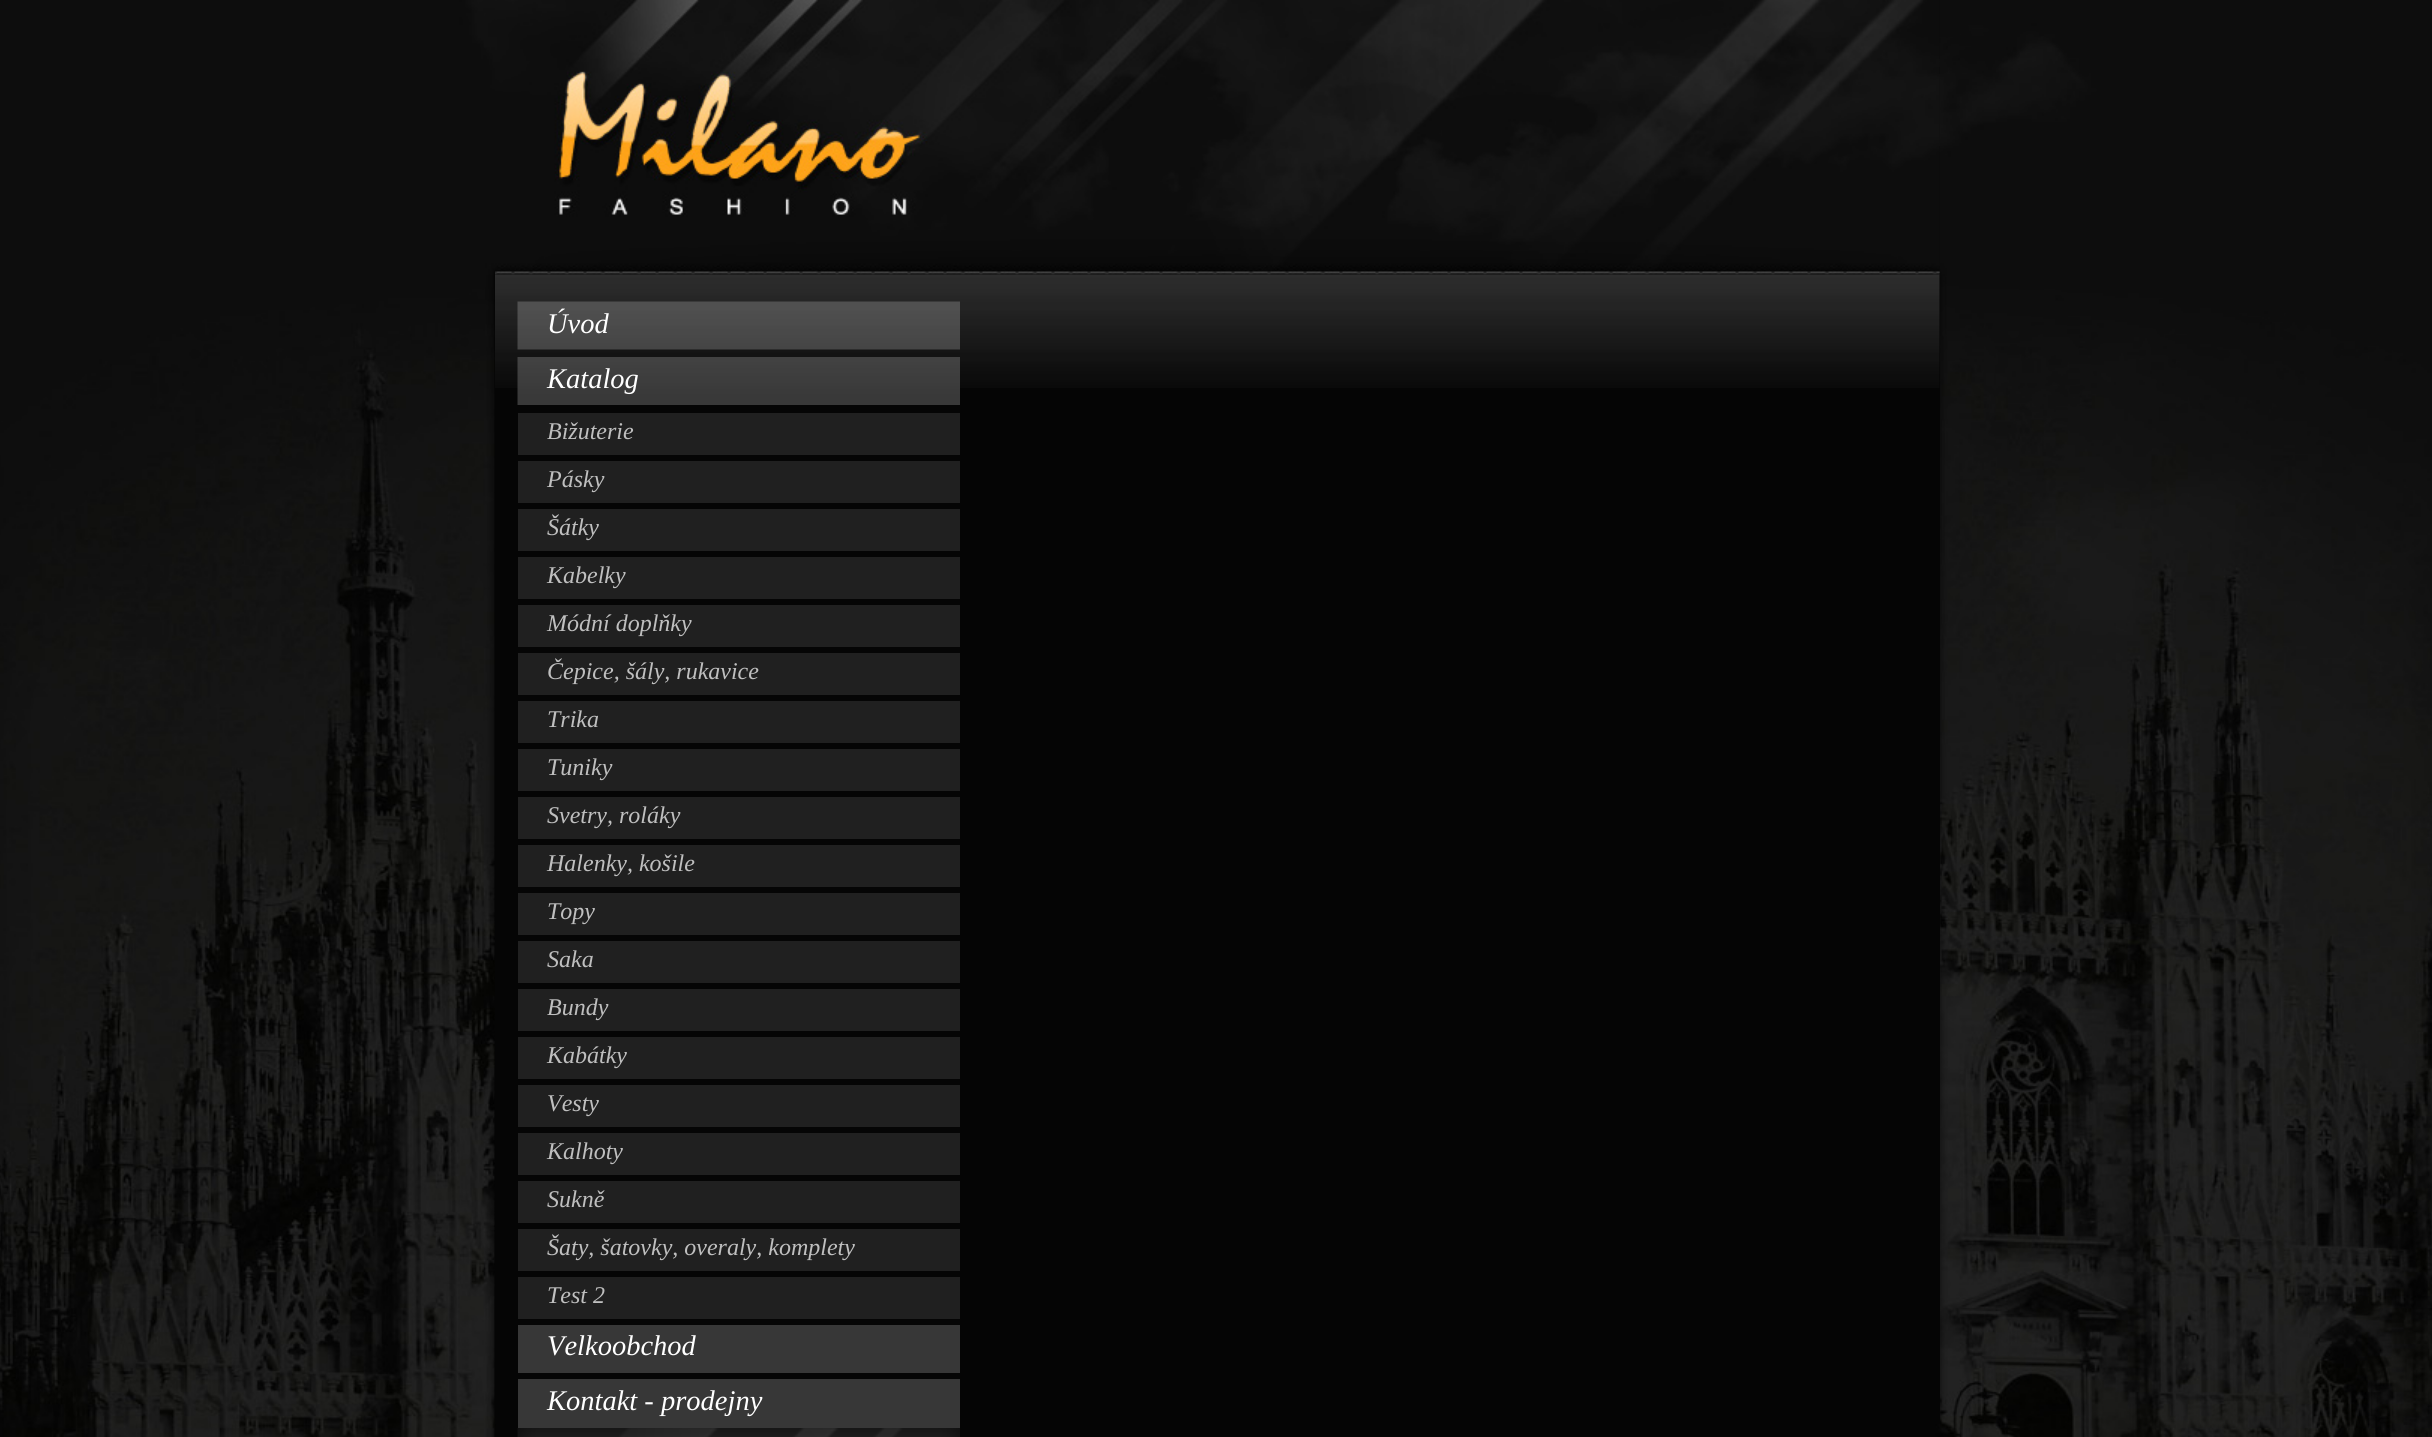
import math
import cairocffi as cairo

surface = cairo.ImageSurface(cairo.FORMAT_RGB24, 2432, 1437)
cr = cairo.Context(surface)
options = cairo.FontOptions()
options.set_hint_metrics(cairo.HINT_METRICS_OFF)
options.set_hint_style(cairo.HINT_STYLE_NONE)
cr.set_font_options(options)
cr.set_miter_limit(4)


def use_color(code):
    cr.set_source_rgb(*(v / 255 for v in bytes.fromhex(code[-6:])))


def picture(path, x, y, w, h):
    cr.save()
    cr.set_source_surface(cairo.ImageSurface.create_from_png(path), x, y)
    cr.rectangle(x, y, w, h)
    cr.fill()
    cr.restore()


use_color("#ffffff")
cr.paint()
picture("img1.png", 0, 0, 2432, 1437)
picture("img2.png", 495, 0, 1445, 275)
picture("img3.png", 495, 3, 1445, 270)
use_color("#050505")
cr.rectangle(495, 275, 1445, 1149)
cr.fill()
picture("img4.png", 495, 274, 1445, 114)
picture("img5.png", 517, 301, 443, 49)
cr.select_font_face("Liberation Serif", cairo.FONT_SLANT_ITALIC)
cr.set_font_size(28.5)
use_color("#ffffff")
cr.move_to(547, 333)
cr.show_text("Úvod")
picture("img6.png", 517, 357, 443, 48)
cr.move_to(547, 388)
cr.show_text("Katalog")
use_color("#202020")
cr.rectangle(518, 413, 442, 42)
cr.fill()
cr.set_font_size(24)
use_color("#bfbfbf")
cr.move_to(547, 439)
cr.show_text("Bižuterie")
use_color("#202020")
cr.rectangle(518, 461, 442, 42)
cr.fill()
use_color("#bfbfbf")
cr.move_to(547, 487)
cr.show_text("Pásky")
use_color("#202020")
cr.rectangle(518, 509, 442, 42)
cr.fill()
use_color("#bfbfbf")
cr.move_to(547, 535)
cr.show_text("Šátky")
use_color("#202020")
cr.rectangle(518, 557, 442, 42)
cr.fill()
use_color("#bfbfbf")
cr.move_to(547, 583)
cr.show_text("Kabelky")
use_color("#202020")
cr.rectangle(518, 605, 442, 42)
cr.fill()
use_color("#bfbfbf")
cr.move_to(547, 631)
cr.show_text("Módní doplňky")
use_color("#202020")
cr.rectangle(518, 653, 442, 42)
cr.fill()
use_color("#bfbfbf")
cr.move_to(547, 679)
cr.show_text("Čepice, šály, rukavice")
use_color("#202020")
cr.rectangle(518, 701, 442, 42)
cr.fill()
use_color("#bfbfbf")
cr.move_to(547, 727)
cr.show_text("Trika")
use_color("#202020")
cr.rectangle(518, 749, 442, 42)
cr.fill()
use_color("#bfbfbf")
cr.move_to(547, 775)
cr.show_text("Tuniky")
use_color("#202020")
cr.rectangle(518, 797, 442, 42)
cr.fill()
use_color("#bfbfbf")
cr.move_to(547, 823)
cr.show_text("Svetry, roláky")
use_color("#202020")
cr.rectangle(518, 845, 442, 42)
cr.fill()
use_color("#bfbfbf")
cr.move_to(547, 871)
cr.show_text("Halenky, košile")
use_color("#202020")
cr.rectangle(518, 893, 442, 42)
cr.fill()
use_color("#bfbfbf")
cr.move_to(547, 919)
cr.show_text("Topy")
use_color("#202020")
cr.rectangle(518, 941, 442, 42)
cr.fill()
use_color("#bfbfbf")
cr.move_to(547, 967)
cr.show_text("Saka")
use_color("#202020")
cr.rectangle(518, 989, 442, 42)
cr.fill()
use_color("#bfbfbf")
cr.move_to(547, 1015)
cr.show_text("Bundy")
use_color("#202020")
cr.rectangle(518, 1037, 442, 42)
cr.fill()
use_color("#bfbfbf")
cr.move_to(547, 1063)
cr.show_text("Kabátky")
use_color("#202020")
cr.rectangle(518, 1085, 442, 42)
cr.fill()
use_color("#bfbfbf")
cr.move_to(547, 1111)
cr.show_text("Vesty")
use_color("#202020")
cr.rectangle(518, 1133, 442, 42)
cr.fill()
use_color("#bfbfbf")
cr.move_to(547, 1159)
cr.show_text("Kalhoty")
use_color("#202020")
cr.rectangle(518, 1181, 442, 42)
cr.fill()
use_color("#bfbfbf")
cr.move_to(547, 1207)
cr.show_text("Sukně")
use_color("#202020")
cr.rectangle(518, 1229, 442, 42)
cr.fill()
use_color("#bfbfbf")
cr.move_to(547, 1255)
cr.show_text("Šaty, šatovky, overaly, komplety")
use_color("#202020")
cr.rectangle(518, 1277, 442, 42)
cr.fill()
use_color("#bfbfbf")
cr.move_to(547, 1303)
cr.show_text("Test 2")
use_color("#373737")
cr.rectangle(518, 1325, 442, 48)
cr.fill()
cr.set_font_size(28.5)
use_color("#ffffff")
cr.move_to(547, 1355)
cr.show_text("Velkoobchod")
use_color("#373737")
cr.rectangle(518, 1379, 442, 49)
cr.fill()
use_color("#ffffff")
cr.move_to(547, 1410)
cr.show_text("Kontakt - prodejny")
picture("img7.png", 517, 1428, 443, 9)
surface.write_to_png("result.png")
